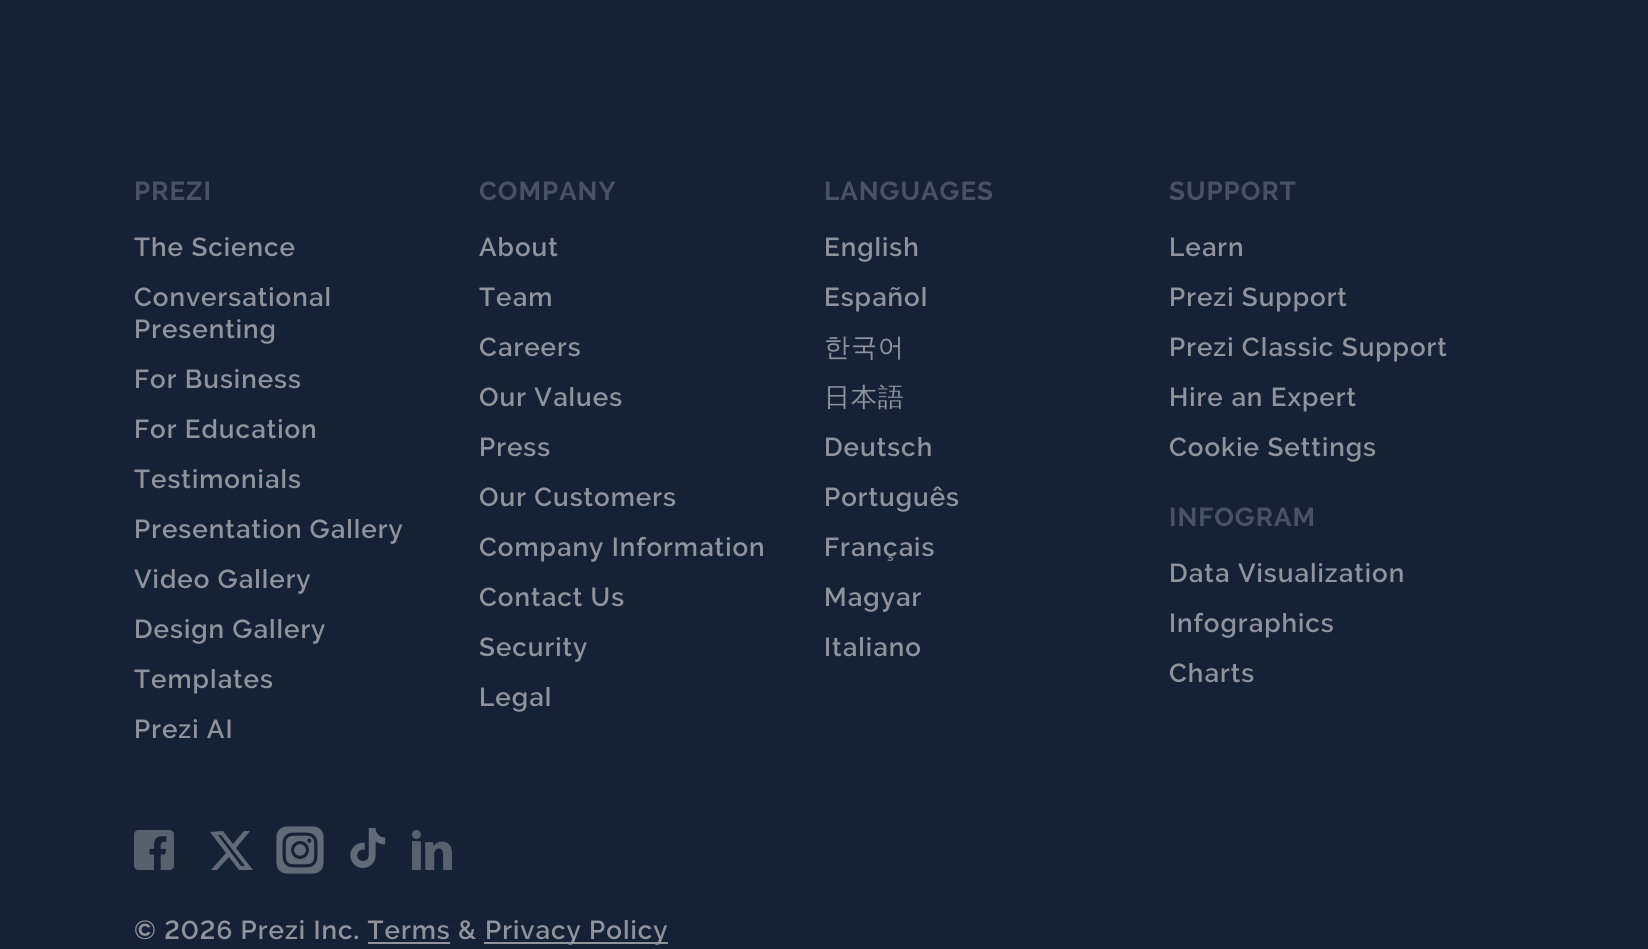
import math
import cairocffi as cairo

surface = cairo.ImageSurface(cairo.FORMAT_RGB24, 1648, 949)
cr = cairo.Context(surface)
options = cairo.FontOptions()
options.set_hint_metrics(cairo.HINT_METRICS_OFF)
options.set_hint_style(cairo.HINT_STYLE_NONE)
cr.set_font_options(options)
cr.set_miter_limit(4)


def use_color(code):
    cr.set_source_rgb(*(v / 255 for v in bytes.fromhex(code[-6:])))


def spaced_text(x, y, s, letter, word):
    cr.move_to(x, y)
    for ch in s:
        cr.show_text(ch)
        cr.rel_move_to(letter + word * (ch == ' '), 0)


def picture(path, x, y, w, h):
    cr.save()
    cr.set_source_surface(cairo.ImageSurface.create_from_png(path), x, y)
    cr.rectangle(x, y, w, h)
    cr.fill()
    cr.restore()


use_color("#152235")
cr.paint()
cr.select_font_face("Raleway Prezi", cairo.FONT_SLANT_NORMAL, cairo.FONT_WEIGHT_BOLD)
cr.set_font_size(26)
use_color("#475262")
spaced_text(134, 200, "PREZI", 1, 0)
cr.select_font_face("Raleway Prezi SemiBold")
use_color("#8e939c")
spaced_text(134, 256, "The Science", 1, 0)
spaced_text(134, 306, "Conversational", 1, 0)
spaced_text(134, 338, "Presenting", 1, 0)
spaced_text(134, 388, "For Business", 1, 0)
spaced_text(134, 438, "For Education", 1, 0)
spaced_text(134, 488, "Testimonials", 1, 0)
spaced_text(134, 538, "Presentation Gallery", 1, 0)
spaced_text(134, 588, "Video Gallery", 1, 0)
spaced_text(134, 638, "Design Gallery", 1, 0)
spaced_text(134, 688, "Templates", 1, 0)
spaced_text(134, 738, "Prezi AI", 1, 0)
cr.select_font_face("Raleway Prezi", cairo.FONT_SLANT_NORMAL, cairo.FONT_WEIGHT_BOLD)
use_color("#475262")
spaced_text(479, 200, "COMPANY", 1, 0)
cr.select_font_face("Raleway Prezi SemiBold")
use_color("#8e939c")
spaced_text(479, 256, "About", 1, 0)
spaced_text(479, 306, "Team", 1, 0)
spaced_text(479, 356, "Careers", 1, 0)
spaced_text(479, 406, "Our Values", 1, 0)
spaced_text(479, 456, "Press", 1, 0)
spaced_text(479, 506, "Our Customers", 1, 0)
spaced_text(479, 556, "Company Information", 1, 0)
spaced_text(479, 606, "Contact Us", 1, 0)
spaced_text(479, 656, "Security", 1, 0)
spaced_text(479, 706, "Legal", 1, 0)
cr.select_font_face("Raleway Prezi", cairo.FONT_SLANT_NORMAL, cairo.FONT_WEIGHT_BOLD)
use_color("#475262")
spaced_text(824, 200, "LANGUAGES", 1, 0)
cr.select_font_face("Raleway Prezi SemiBold")
use_color("#8e939c")
spaced_text(824, 256, "English", 1, 0)
spaced_text(824, 306, "Español", 1, 0)
cr.select_font_face("WenQuanYi Zen Hei Medium")
spaced_text(824, 356, "한국어", 1, 0)
spaced_text(824, 406, "日本語", 1, 0)
cr.select_font_face("Raleway Prezi SemiBold")
spaced_text(824, 456, "Deutsch", 1, 0)
spaced_text(824, 506, "Português", 1, 0)
spaced_text(824, 556, "Français", 1, 0)
spaced_text(824, 606, "Magyar", 1, 0)
spaced_text(824, 656, "Italiano", 1, 0)
cr.select_font_face("Raleway Prezi", cairo.FONT_SLANT_NORMAL, cairo.FONT_WEIGHT_BOLD)
use_color("#475262")
spaced_text(1169, 200, "SUPPORT", 1, 0)
cr.select_font_face("Raleway Prezi SemiBold")
use_color("#8e939c")
spaced_text(1169, 256, "Learn", 1, 0)
spaced_text(1169, 306, "Prezi Support", 1, 0)
spaced_text(1169, 356, "Prezi Classic Support", 1, 0)
spaced_text(1169, 406, "Hire an Expert", 1, 0)
spaced_text(1169, 456, "Cookie Settings", 1, 0)
cr.select_font_face("Raleway Prezi", cairo.FONT_SLANT_NORMAL, cairo.FONT_WEIGHT_BOLD)
use_color("#475262")
spaced_text(1169, 526, "INFOGRAM", 1, 0)
cr.select_font_face("Raleway Prezi SemiBold")
use_color("#8e939c")
spaced_text(1169, 582, "Data Visualization", 1, 0)
spaced_text(1169, 632, "Infographics", 1, 0)
spaced_text(1169, 682, "Charts", 1, 0)
picture("img1.png", 134, 830, 40, 40)
use_color("#616a77")
cr.new_path()
cr.move_to(211, 870)
cr.line_to(226, 853)
cr.line_to(210, 832)
cr.line_to(223, 831)
cr.line_to(233, 844)
cr.line_to(244, 831)
cr.line_to(250, 831)
cr.line_to(236, 848)
cr.line_to(253, 870)
cr.line_to(239, 870)
cr.line_to(229, 857)
cr.line_to(217, 870)
cr.close_path()
cr.move_to(245, 866)
cr.line_to(221, 835)
cr.line_to(218, 835)
cr.line_to(241, 866)
cr.close_path()
cr.fill()
picture("img2.png", 276, 826, 48, 48)
picture("img3.png", 350, 828, 36, 40)
picture("img4.png", 412, 830, 40, 40)
use_color("#8e939c")
spaced_text(134, 939, "© 2026 Prezi Inc. Terms &", 1, 0)
cr.rectangle(484, 942, 184, 2)
cr.fill()
spaced_text(485, 939, "Privacy Policy", 1, 0)
cr.rectangle(368, 942, 82, 2)
cr.fill()
surface.write_to_png("result.png")
